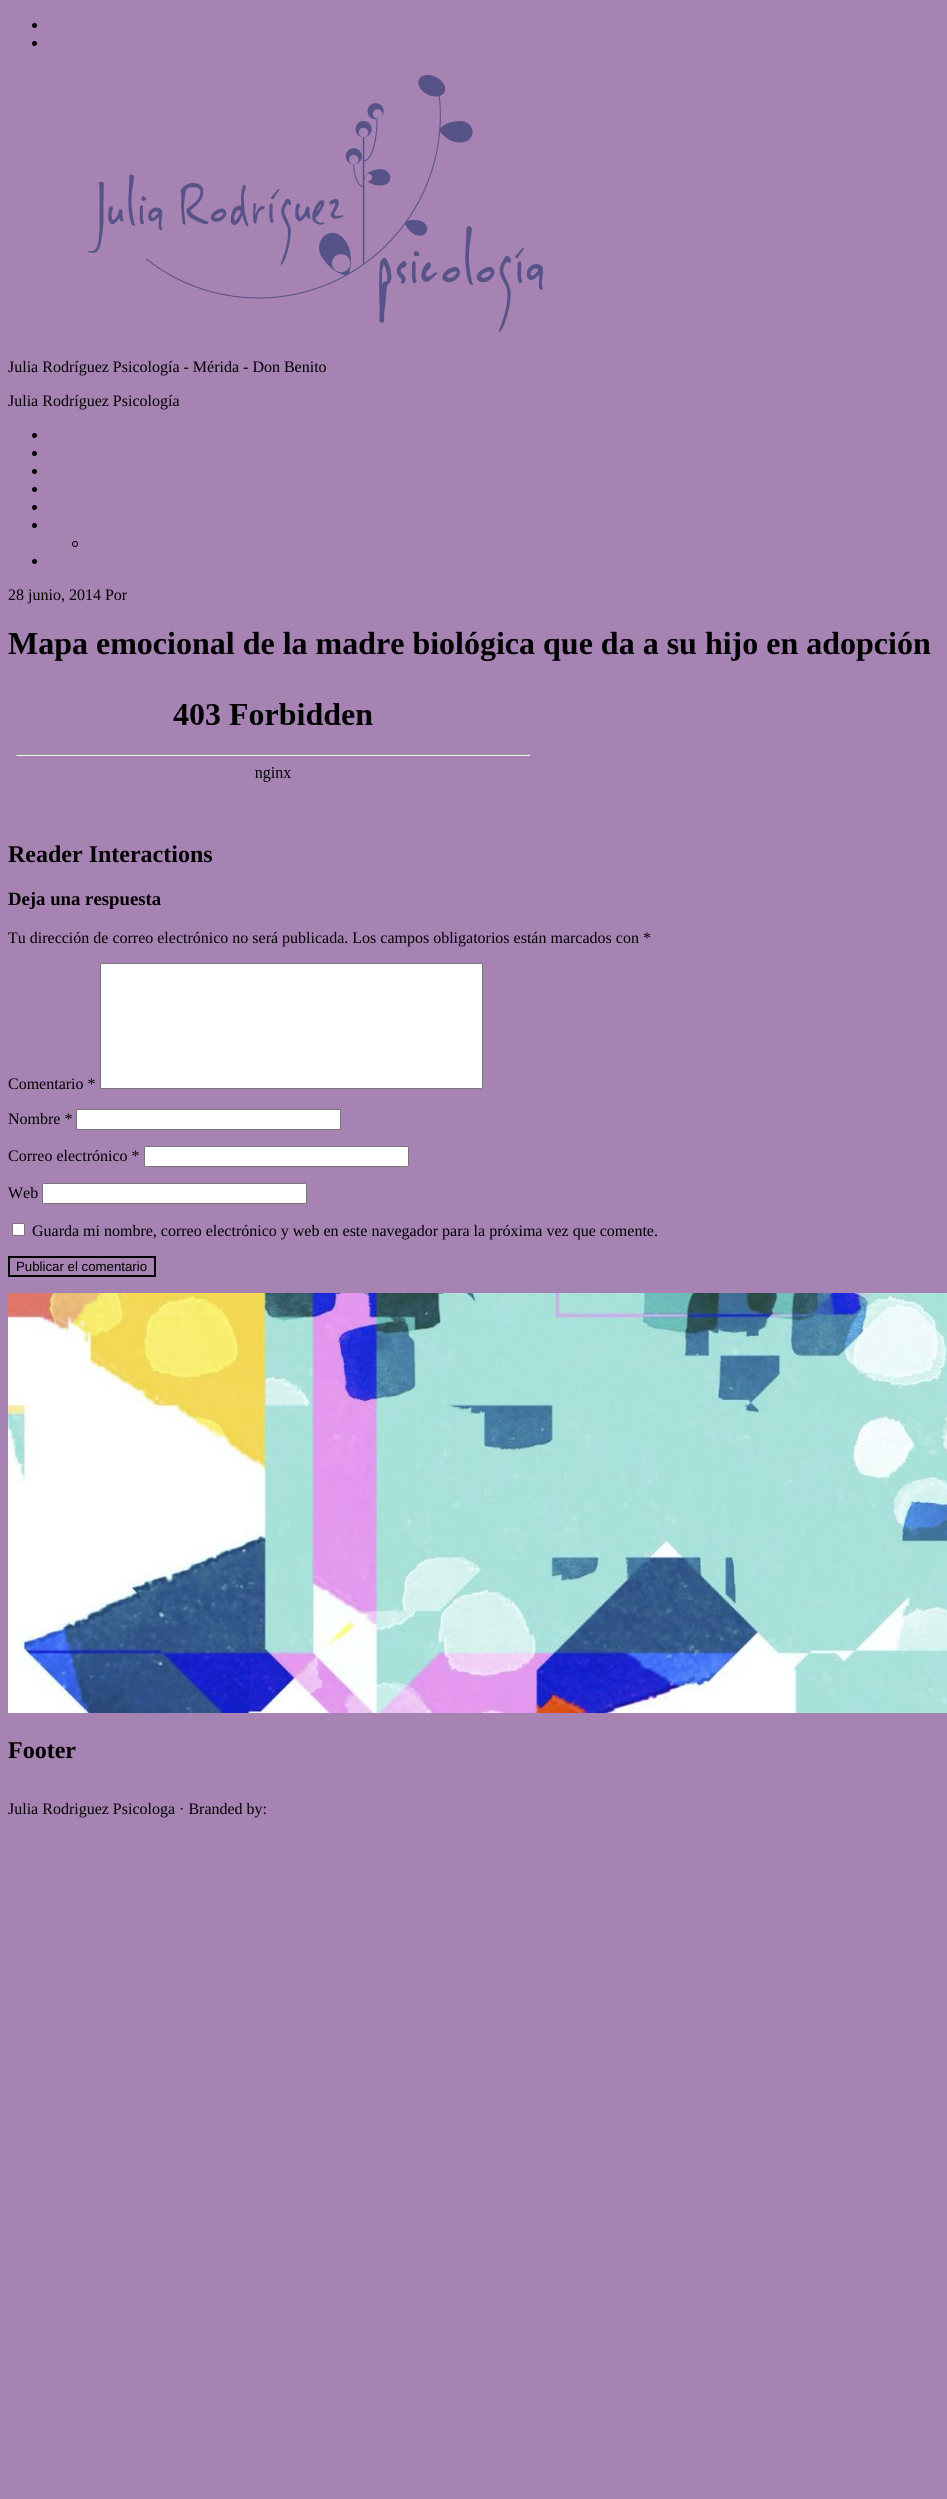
import math
import cairocffi as cairo

surface = cairo.ImageSurface(cairo.FORMAT_RGB24, 947, 2499)
cr = cairo.Context(surface)
options = cairo.FontOptions()
options.set_hint_metrics(cairo.HINT_METRICS_OFF)
options.set_hint_style(cairo.HINT_STYLE_NONE)
cr.set_font_options(options)
cr.set_miter_limit(4)


def use_color(code):
    cr.set_source_rgb(*(v / 255 for v in bytes.fromhex(code[-6:])))


def round_rect(x, y, w, h, r):
    cr.new_sub_path()
    for i, (u, v) in enumerate([(x + w - r, y + h - r), (x + r, y + h - r), (x + r, y + r), (x + w - r, y + r)]):
        cr.arc(u, v, r, i * math.pi / 2, (i + 1) * math.pi / 2)
    cr.close_path()


def picture(path, x, y, w, h):
    cr.save()
    cr.set_source_surface(cairo.ImageSurface.create_from_png(path), x, y)
    cr.rectangle(x, y, w, h)
    cr.fill()
    cr.restore()


use_color("#a683b3")
cr.paint()
use_color("#000000")
cr.arc(34.5, 25.5, 2.5, 0, 2 * math.pi)
cr.fill()
cr.arc(34.5, 43.5, 2.5, 0, 2 * math.pi)
cr.fill()
picture("img1.png", 87, 75, 456, 257)
cr.select_font_face("Liberation Serif")
cr.set_font_size(16)
cr.move_to(8, 372)
cr.show_text("Julia Rodríguez Psicología - Mérida - Don Benito")
cr.move_to(8, 406)
cr.show_text("Julia Rodríguez Psicología")
cr.new_path()
cr.arc(34.5, 435.5, 2.5, 0, 2 * math.pi)
cr.fill()
cr.arc(34.5, 453.5, 2.5, 0, 2 * math.pi)
cr.fill()
cr.arc(34.5, 471.5, 2.5, 0, 2 * math.pi)
cr.fill()
cr.arc(34.5, 489.5, 2.5, 0, 2 * math.pi)
cr.fill()
cr.arc(34.5, 507.5, 2.5, 0, 2 * math.pi)
cr.fill()
cr.arc(34.5, 525.5, 2.5, 0, 2 * math.pi)
cr.fill()
cr.arc(75, 544, 2.5, 0, 2 * math.pi)
cr.set_line_width(1)
cr.stroke()
cr.arc(34.5, 561.5, 2.5, 0, 2 * math.pi)
cr.fill()
cr.move_to(8, 600)
cr.show_text("28 junio, 2014 Por")
cr.select_font_face("Liberation Serif", cairo.FONT_SLANT_NORMAL, cairo.FONT_WEIGHT_BOLD)
cr.set_font_size(32)
cr.move_to(8, 654)
cr.show_text("Mapa emocional de la madre biológica que da a su hijo en adopción")
picture("img2.png", 16, 703, 514, 79)
cr.set_font_size(24)
cr.move_to(8, 862)
cr.show_text("Reader Interactions")
cr.set_font_size(18.75)
cr.move_to(8, 905)
cr.show_text("Deja una respuesta")
cr.select_font_face("Liberation Serif")
cr.set_font_size(16)
cr.move_to(8, 943)
cr.show_text("Tu dirección de correo electrónico no será publicada. Los campos obligatorios están marcados con *")
cr.move_to(8, 1089)
cr.show_text("Comentario *")
use_color("#ffffff")
round_rect(100.5, 963.5, 382, 125, 1.5)
cr.fill_preserve()
use_color("#767676")
cr.stroke()
use_color("#000000")
cr.move_to(8, 1124)
cr.show_text("Nombre *")
use_color("#ffffff")
round_rect(76.5, 1109.5, 264, 20, 1.5)
cr.fill_preserve()
use_color("#767676")
cr.stroke()
use_color("#000000")
cr.move_to(8, 1161)
cr.show_text("Correo electrónico *")
use_color("#ffffff")
round_rect(144.5, 1146.5, 264, 20, 1.5)
cr.fill_preserve()
use_color("#767676")
cr.stroke()
use_color("#000000")
cr.move_to(8, 1198)
cr.show_text("Web")
use_color("#ffffff")
round_rect(42.5, 1183.5, 264, 20, 1.5)
cr.fill_preserve()
use_color("#767676")
cr.stroke()
use_color("#ffffff")
round_rect(12.5, 1223.5, 12, 12, 1.5)
cr.fill_preserve()
use_color("#767676")
cr.stroke()
use_color("#000000")
cr.move_to(32, 1236)
cr.show_text("Guarda mi nombre, correo electrónico y web en este navegador para la próxima vez que comente.")
cr.rectangle(9, 1257, 146, 19)
cr.set_line_width(2)
cr.stroke()
cr.select_font_face("Liberation Sans")
cr.set_font_size(13.25)
cr.move_to(16, 1271)
cr.show_text("Publicar el comentario")
picture("img3.png", 8, 1293, 939, 420)
cr.select_font_face("Liberation Serif", cairo.FONT_SLANT_NORMAL, cairo.FONT_WEIGHT_BOLD)
cr.set_font_size(24)
cr.move_to(8, 1758)
cr.show_text("Footer")
cr.select_font_face("Liberation Serif")
cr.set_font_size(16)
cr.move_to(8, 1814)
cr.show_text("Julia Rodriguez Psicologa · Branded by:")
surface.write_to_png("result.png")
